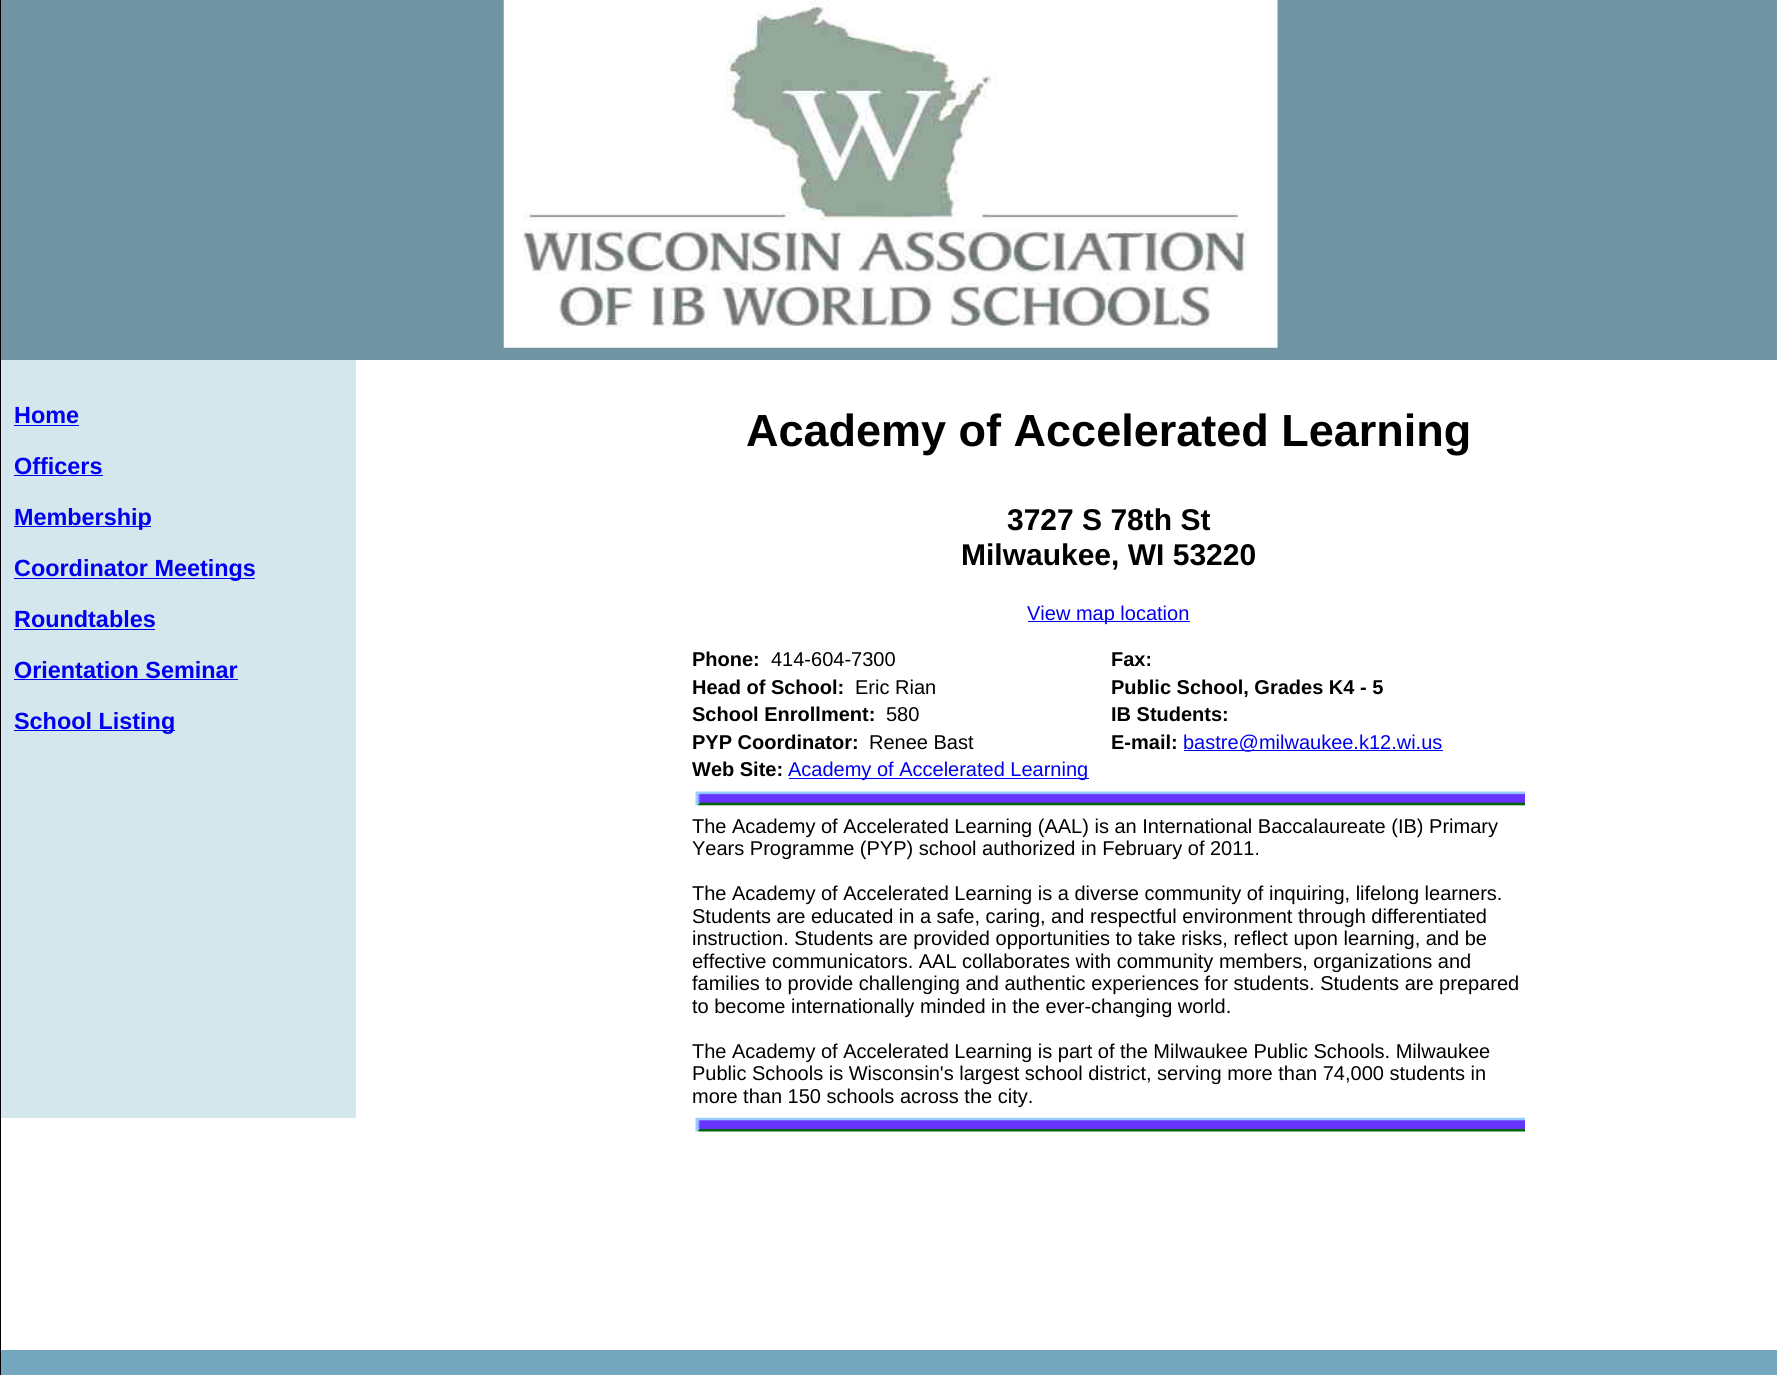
import math
import cairocffi as cairo

surface = cairo.ImageSurface(cairo.FORMAT_RGB24, 1777, 1375)
cr = cairo.Context(surface)
options = cairo.FontOptions()
options.set_hint_metrics(cairo.HINT_METRICS_OFF)
options.set_hint_style(cairo.HINT_STYLE_NONE)
cr.set_font_options(options)
cr.set_miter_limit(4)


def use_color(code):
    cr.set_source_rgb(*(v / 255 for v in bytes.fromhex(code[-6:])))


def picture(path, x, y, w, h):
    cr.save()
    cr.set_source_surface(cairo.ImageSurface.create_from_png(path), x, y)
    cr.rectangle(x, y, w, h)
    cr.fill()
    cr.restore()


use_color("#ffffff")
cr.paint()
cr.rectangle(0.5, -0.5, 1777, 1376)
use_color("#000000")
cr.set_line_width(1)
cr.stroke()
use_color("#7195a3")
cr.rectangle(1, 0, 1776, 360)
cr.fill()
picture("img1.png", 503, 0, 775, 348)
use_color("#d4e7ed")
cr.rectangle(1, 360, 355, 758)
cr.fill()
cr.select_font_face("Liberation Sans", cairo.FONT_SLANT_NORMAL, cairo.FONT_WEIGHT_BOLD)
cr.set_font_size(23.4)
use_color("#0000ee")
cr.move_to(14, 423)
cr.show_text("Home")
cr.rectangle(14, 425, 65, 1)
cr.fill()
cr.move_to(14, 474)
cr.show_text("Officers")
cr.rectangle(14, 475, 89, 1)
cr.fill()
cr.rectangle(14, 526, 137, 1)
cr.fill()
cr.move_to(14, 525)
cr.show_text("Membership")
cr.rectangle(14, 578, 241, 1)
cr.fill()
cr.move_to(14, 576)
cr.show_text("Coordinator Meetings")
cr.move_to(14, 627)
cr.show_text("Roundtables")
cr.rectangle(14, 629, 141, 1)
cr.fill()
cr.move_to(14, 678)
cr.show_text("Orientation Seminar")
cr.rectangle(14, 679, 224, 1)
cr.fill()
cr.rectangle(14, 730, 161, 1)
cr.fill()
cr.move_to(14, 729)
cr.show_text("School Listing")
cr.set_font_size(45)
use_color("#000000")
cr.move_to(746, 446)
cr.show_text("Academy of Accelerated Learning")
cr.set_font_size(30)
cr.move_to(1007, 530)
cr.show_text("3727 S 78th St")
cr.move_to(961, 565)
cr.show_text("Milwaukee, WI 53220")
use_color("#0000ee")
cr.rectangle(1028, 621, 162, 1)
cr.fill()
cr.select_font_face("Liberation Sans")
cr.set_font_size(20)
cr.move_to(1027, 620)
cr.show_text("View map location")
cr.select_font_face("Liberation Sans", cairo.FONT_SLANT_NORMAL, cairo.FONT_WEIGHT_BOLD)
use_color("#000000")
cr.move_to(692, 666)
cr.show_text("Phone:")
cr.select_font_face("Liberation Sans")
cr.move_to(771, 666)
cr.show_text("414-604-7300")
cr.select_font_face("Liberation Sans", cairo.FONT_SLANT_NORMAL, cairo.FONT_WEIGHT_BOLD)
cr.move_to(1111, 666)
cr.show_text("Fax:")
cr.move_to(692, 694)
cr.show_text("Head of School:")
cr.select_font_face("Liberation Sans")
cr.move_to(855, 694)
cr.show_text("Eric Rian")
cr.select_font_face("Liberation Sans", cairo.FONT_SLANT_NORMAL, cairo.FONT_WEIGHT_BOLD)
cr.move_to(1111, 694)
cr.show_text("Public School, Grades K4 - 5")
cr.move_to(692, 721)
cr.show_text("School Enrollment:")
cr.select_font_face("Liberation Sans")
cr.move_to(886, 721)
cr.show_text("580")
cr.select_font_face("Liberation Sans", cairo.FONT_SLANT_NORMAL, cairo.FONT_WEIGHT_BOLD)
cr.move_to(1111, 721)
cr.show_text("IB Students:")
cr.move_to(692, 749)
cr.show_text("PYP Coordinator:")
cr.select_font_face("Liberation Sans")
cr.move_to(869, 749)
cr.show_text("Renee Bast")
cr.select_font_face("Liberation Sans", cairo.FONT_SLANT_NORMAL, cairo.FONT_WEIGHT_BOLD)
cr.move_to(1111, 749)
cr.show_text("E-mail:")
use_color("#0000ee")
cr.rectangle(1184, 750, 259, 1)
cr.fill()
cr.select_font_face("Liberation Sans")
cr.move_to(1183, 749)
cr.show_text("bastre@milwaukee.k12.wi.us")
cr.select_font_face("Liberation Sans", cairo.FONT_SLANT_NORMAL, cairo.FONT_WEIGHT_BOLD)
use_color("#000000")
cr.move_to(692, 776)
cr.show_text("Web Site:")
use_color("#0000ee")
cr.rectangle(789, 778, 300, 1)
cr.fill()
cr.select_font_face("Liberation Sans")
cr.move_to(788, 776)
cr.show_text("Academy of Accelerated Learning")
picture("img2.png", 695, 791, 830, 15)
use_color("#000000")
cr.move_to(692, 833)
cr.show_text("The Academy of Accelerated Learning (AAL) is an International Baccalaureate (IB) Primary")
cr.move_to(692, 855)
cr.show_text("Years Programme (PYP) school authorized in February of 2011.")
cr.move_to(692, 900)
cr.show_text("The Academy of Accelerated Learning is a diverse community of inquiring, lifelong learners.")
cr.move_to(692, 923)
cr.show_text("Students are educated in a safe, caring, and respectful environment through differentiated")
cr.move_to(692, 945)
cr.show_text("instruction. Students are provided opportunities to take risks, reflect upon learning, and be")
cr.move_to(692, 968)
cr.show_text("effective communicators. AAL collaborates with community members, organizations and")
cr.move_to(692, 990)
cr.show_text("families to provide challenging and authentic experiences for students. Students are prepared")
cr.move_to(692, 1013)
cr.show_text("to become internationally minded in the ever-changing world.")
cr.move_to(692, 1058)
cr.show_text("The Academy of Accelerated Learning is part of the Milwaukee Public Schools. Milwaukee")
cr.move_to(692, 1080)
cr.show_text("Public Schools is Wisconsin's largest school district, serving more than 74,000 students in")
cr.move_to(692, 1103)
cr.show_text("more than 150 schools across the city.")
picture("img3.png", 695, 1117, 830, 15)
use_color("#74a6bd")
cr.rectangle(1, 1350, 1776, 25)
cr.fill()
surface.write_to_png("result.png")
